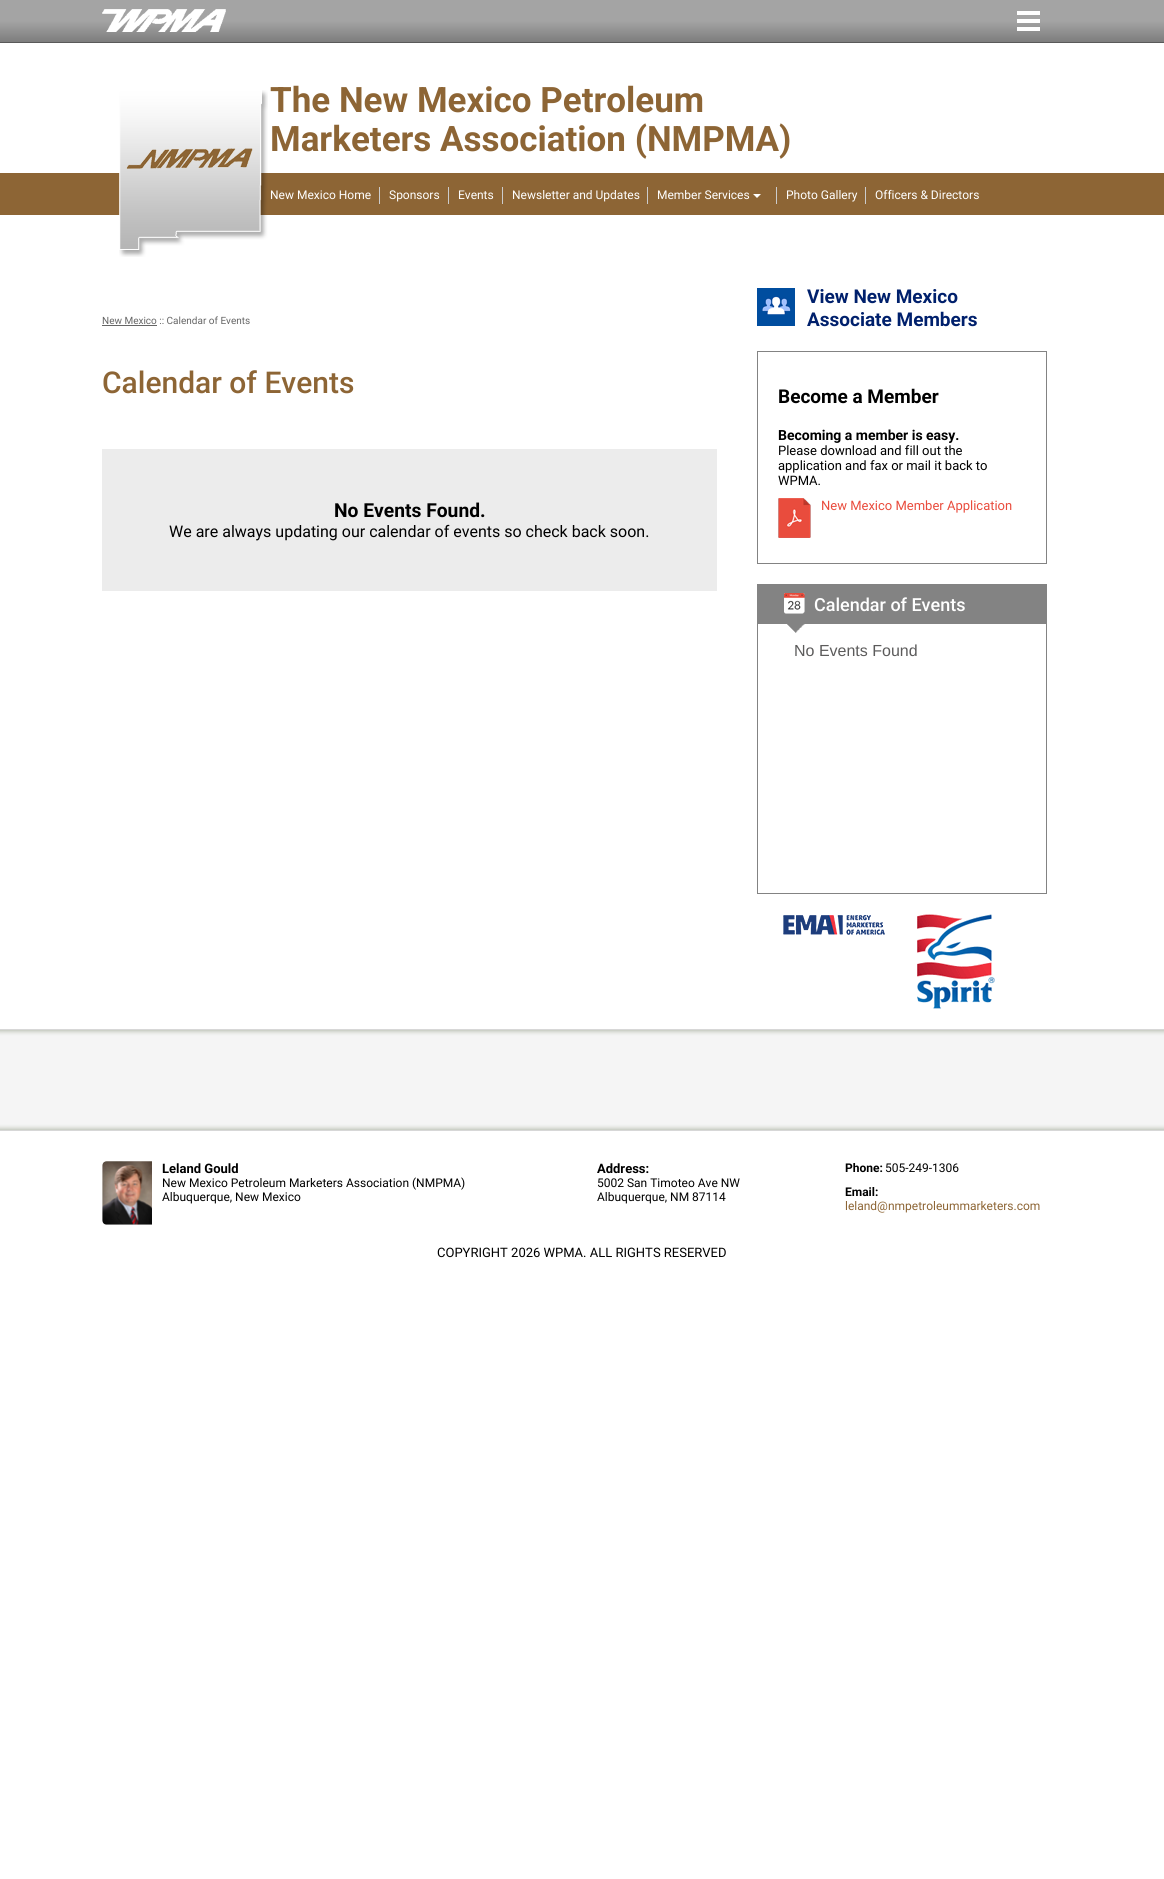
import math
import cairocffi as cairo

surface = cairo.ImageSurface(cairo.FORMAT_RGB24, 1164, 1879)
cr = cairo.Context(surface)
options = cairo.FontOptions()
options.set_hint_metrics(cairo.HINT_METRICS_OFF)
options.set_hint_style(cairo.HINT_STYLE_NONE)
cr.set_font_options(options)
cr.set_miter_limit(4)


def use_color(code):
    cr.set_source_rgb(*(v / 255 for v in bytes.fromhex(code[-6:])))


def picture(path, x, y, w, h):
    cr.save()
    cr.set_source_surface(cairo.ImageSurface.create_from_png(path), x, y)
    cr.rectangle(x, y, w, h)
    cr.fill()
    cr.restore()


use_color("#ffffff")
cr.paint()
gradient = cairo.LinearGradient(582, 0, 582, 42)
gradient.add_color_stop_rgba(0.5, 0.643, 0.643, 0.643, 1)
gradient.add_color_stop_rgba(1, 0.49, 0.49, 0.49, 1)
cr.set_source(gradient)
cr.rectangle(0, 0, 1164, 42)
cr.fill()
use_color("#595959")
cr.rectangle(0, 42, 1164, 1)
cr.fill()
picture("img1.png", 102, 9, 124, 23)
picture("img2.png", 1017, 11, 23, 20)
use_color("#8d6535")
cr.rectangle(0, 173, 1164, 42)
cr.fill()
picture("img3.png", 119, 90, 149, 167)
cr.select_font_face("Roboto", cairo.FONT_SLANT_NORMAL, cairo.FONT_WEIGHT_BOLD)
cr.set_font_size(35)
cr.move_to(270, 112)
cr.show_text("The New Mexico Petroleum")
cr.move_to(270, 151)
cr.show_text("Marketers Association (NMPMA)")
use_color("#cccccc")
cr.rectangle(865, 187, 1, 17)
cr.fill()
cr.select_font_face("Roboto")
cr.set_font_size(12)
use_color("#ffffff")
cr.move_to(875, 199)
cr.show_text("Officers & Directors")
cr.move_to(270, 199)
cr.show_text("New Mexico Home")
use_color("#cccccc")
cr.rectangle(379, 187, 1, 17)
cr.fill()
use_color("#ffffff")
cr.move_to(389, 199)
cr.show_text("Sponsors")
use_color("#cccccc")
cr.rectangle(448, 187, 1, 17)
cr.fill()
use_color("#ffffff")
cr.move_to(458, 199)
cr.show_text("Events")
use_color("#cccccc")
cr.rectangle(502, 187, 1, 17)
cr.fill()
use_color("#ffffff")
cr.move_to(512, 199)
cr.show_text("Newsletter and Updates")
use_color("#cccccc")
cr.rectangle(776, 187, 1, 17)
cr.fill()
cr.rectangle(647, 187, 1, 17)
cr.fill()
use_color("#ffffff")
cr.move_to(657, 199)
cr.show_text("Member Services")
cr.new_path()
cr.move_to(753, 194)
cr.line_to(761, 194)
cr.line_to(757, 198)
cr.close_path()
cr.fill()
cr.move_to(786, 199)
cr.show_text("Photo Gallery")
cr.set_font_size(10)
use_color("#656565")
cr.move_to(102, 324)
cr.show_text("New Mexico :: Calendar of Events")
cr.rectangle(102, 325, 55, 1)
cr.fill()
cr.select_font_face("Roboto Medium")
cr.set_font_size(30)
use_color("#8d6535")
cr.move_to(102, 393)
cr.show_text("Calendar of Events")
use_color("#ececec")
cr.rectangle(102, 449, 615, 142)
cr.fill()
cr.select_font_face("Roboto", cairo.FONT_SLANT_NORMAL, cairo.FONT_WEIGHT_BOLD)
cr.set_font_size(19.25)
use_color("#000000")
cr.move_to(334, 517)
cr.show_text("No Events Found.")
cr.select_font_face("Roboto")
cr.set_font_size(16)
cr.move_to(169, 537)
cr.show_text("We are always updating our calendar of events so check back soon.")
picture("img4.png", 757, 288, 38, 38)
cr.select_font_face("Roboto", cairo.FONT_SLANT_NORMAL, cairo.FONT_WEIGHT_BOLD)
cr.set_font_size(19)
use_color("#00206c")
cr.move_to(807, 303)
cr.show_text("View New Mexico")
cr.move_to(807, 326)
cr.show_text("Associate Members")
cr.rectangle(757.5, 351.5, 289, 212)
use_color("#838383")
cr.set_line_width(1)
cr.stroke()
use_color("#000000")
cr.move_to(778, 403)
cr.show_text("Become a Member")
cr.set_font_size(14)
cr.move_to(778, 440)
cr.show_text("Becoming a member is easy.")
cr.select_font_face("Roboto")
cr.set_font_size(13)
cr.move_to(778, 455)
cr.show_text("Please download and fill out the")
cr.move_to(778, 470)
cr.show_text("application and fax or mail it back to")
cr.move_to(778, 485)
cr.show_text("WPMA.")
picture("img5.png", 778, 498, 33, 40)
use_color("#e94c3d")
cr.move_to(821, 510)
cr.show_text("New Mexico Member Application")
use_color("#838383")
cr.rectangle(757, 584, 290, 40)
cr.fill()
picture("img6.png", 784, 593, 21, 21)
cr.select_font_face("Roboto Medium")
cr.set_font_size(18)
use_color("#ffffff")
cr.move_to(814, 611)
cr.show_text("Calendar of Events")
picture("img7.png", 787, 624, 18, 9)
use_color("#838383")
cr.rectangle(1046, 624, 1, 270)
cr.fill()
cr.rectangle(757, 893, 290, 1)
cr.fill()
cr.rectangle(757, 624, 1, 270)
cr.fill()
cr.select_font_face("Liberation Sans")
cr.set_font_size(16)
use_color("#5c5b5b")
cr.move_to(794, 656)
cr.show_text("No Events Found")
picture("img8.png", 783, 915, 102, 20)
picture("img9.png", 917, 914, 78, 95)
picture("img10.png", 0, 1029, 1164, 102)
picture("img11.png", 102, 1161, 50, 64)
cr.select_font_face("Roboto", cairo.FONT_SLANT_NORMAL, cairo.FONT_WEIGHT_BOLD)
cr.set_font_size(13)
use_color("#000000")
cr.move_to(162, 1173)
cr.show_text("Leland Gould")
cr.select_font_face("Roboto")
cr.set_font_size(12)
cr.move_to(162, 1187)
cr.show_text("New Mexico Petroleum Marketers Association (NMPMA)")
cr.move_to(162, 1201)
cr.show_text("Albuquerque, New Mexico")
cr.select_font_face("Roboto", cairo.FONT_SLANT_NORMAL, cairo.FONT_WEIGHT_BOLD)
cr.set_font_size(13)
cr.move_to(597, 1173)
cr.show_text("Address:")
cr.select_font_face("Roboto")
cr.set_font_size(12)
cr.move_to(597, 1187)
cr.show_text("5002 San Timoteo Ave NW")
cr.move_to(597, 1201)
cr.show_text("Albuquerque, NM 87114")
cr.select_font_face("Roboto", cairo.FONT_SLANT_NORMAL, cairo.FONT_WEIGHT_BOLD)
cr.move_to(845, 1172)
cr.show_text("Phone:")
cr.select_font_face("Roboto")
cr.move_to(885, 1172)
cr.show_text("505-249-1306")
cr.select_font_face("Roboto", cairo.FONT_SLANT_NORMAL, cairo.FONT_WEIGHT_BOLD)
cr.move_to(845, 1196)
cr.show_text("Email:")
cr.select_font_face("Roboto")
use_color("#8d6535")
cr.move_to(845, 1210)
cr.show_text("leland@nmpetroleummarketers.com")
cr.set_font_size(13)
use_color("#000000")
cr.move_to(437, 1257)
cr.show_text("COPYRIGHT 2026 WPMA. ALL RIGHTS RESERVED")
surface.write_to_png("result.png")
